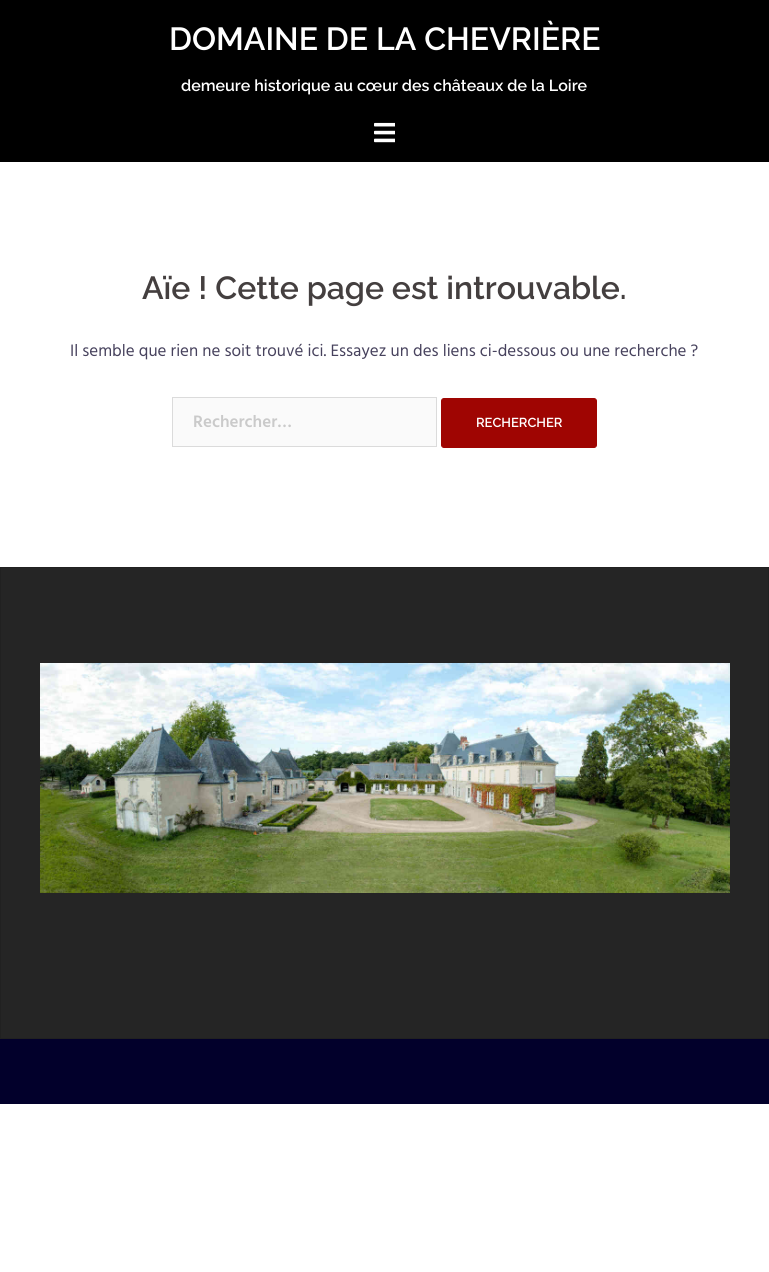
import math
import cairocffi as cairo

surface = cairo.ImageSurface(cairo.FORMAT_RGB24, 769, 1272)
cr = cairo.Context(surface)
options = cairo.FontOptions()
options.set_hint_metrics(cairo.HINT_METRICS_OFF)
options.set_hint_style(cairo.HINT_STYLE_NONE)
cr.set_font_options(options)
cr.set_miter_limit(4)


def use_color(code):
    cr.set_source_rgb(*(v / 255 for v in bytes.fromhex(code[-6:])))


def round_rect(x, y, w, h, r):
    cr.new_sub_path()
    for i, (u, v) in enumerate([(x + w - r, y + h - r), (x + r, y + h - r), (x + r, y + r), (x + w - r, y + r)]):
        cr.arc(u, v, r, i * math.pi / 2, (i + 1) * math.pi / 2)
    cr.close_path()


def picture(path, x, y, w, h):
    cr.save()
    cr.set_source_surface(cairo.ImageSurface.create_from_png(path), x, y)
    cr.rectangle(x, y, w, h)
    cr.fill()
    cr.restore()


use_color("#ffffff")
cr.paint()
use_color("#000000")
cr.rectangle(0, 0, 769, 162)
cr.fill()
cr.select_font_face("Raleway Thin")
cr.set_font_size(32)
use_color("#ffffff")
cr.move_to(169, 50)
cr.show_text("DOMAINE DE LA CHEVRIÈRE")
cr.set_font_size(16)
cr.move_to(181, 91)
cr.show_text("demeure historique au cœur des châteaux de la Loire")
picture("img1.png", 374, 122, 21, 21)
cr.set_font_size(32)
use_color("#443f3f")
cr.move_to(142, 299)
cr.show_text("Aïe ! Cette page est introuvable.")
cr.select_font_face("Hind")
cr.set_font_size(17)
use_color("#47425d")
cr.move_to(70, 356)
cr.show_text("Il semble que rien ne soit trouvé ici. Essayez un des liens ci-dessous ou une recherche ?")
use_color("#fafafa")
cr.rectangle(172.5, 397.5, 264, 49)
cr.fill_preserve()
use_color("#dbdbdb")
cr.set_line_width(1)
cr.stroke()
cr.select_font_face("Hind SemiBold")
use_color("#cacaca")
cr.move_to(193, 427)
cr.show_text("Rechercher…")
use_color("#9f0502")
round_rect(441.5, 398.5, 155, 49, 2.5)
cr.fill_preserve()
cr.stroke()
cr.select_font_face("Raleway Thin")
cr.set_font_size(13)
use_color("#ffffff")
cr.move_to(476, 427)
cr.show_text("RECHERCHER")
use_color("#252525")
cr.rectangle(0.5, 567.5, 768, 471)
cr.fill_preserve()
use_color("#212121")
cr.stroke()
picture("img2.png", 40, 663, 690, 230)
use_color("#02002b")
cr.rectangle(0, 1039, 769, 65)
cr.fill()
surface.write_to_png("result.png")
